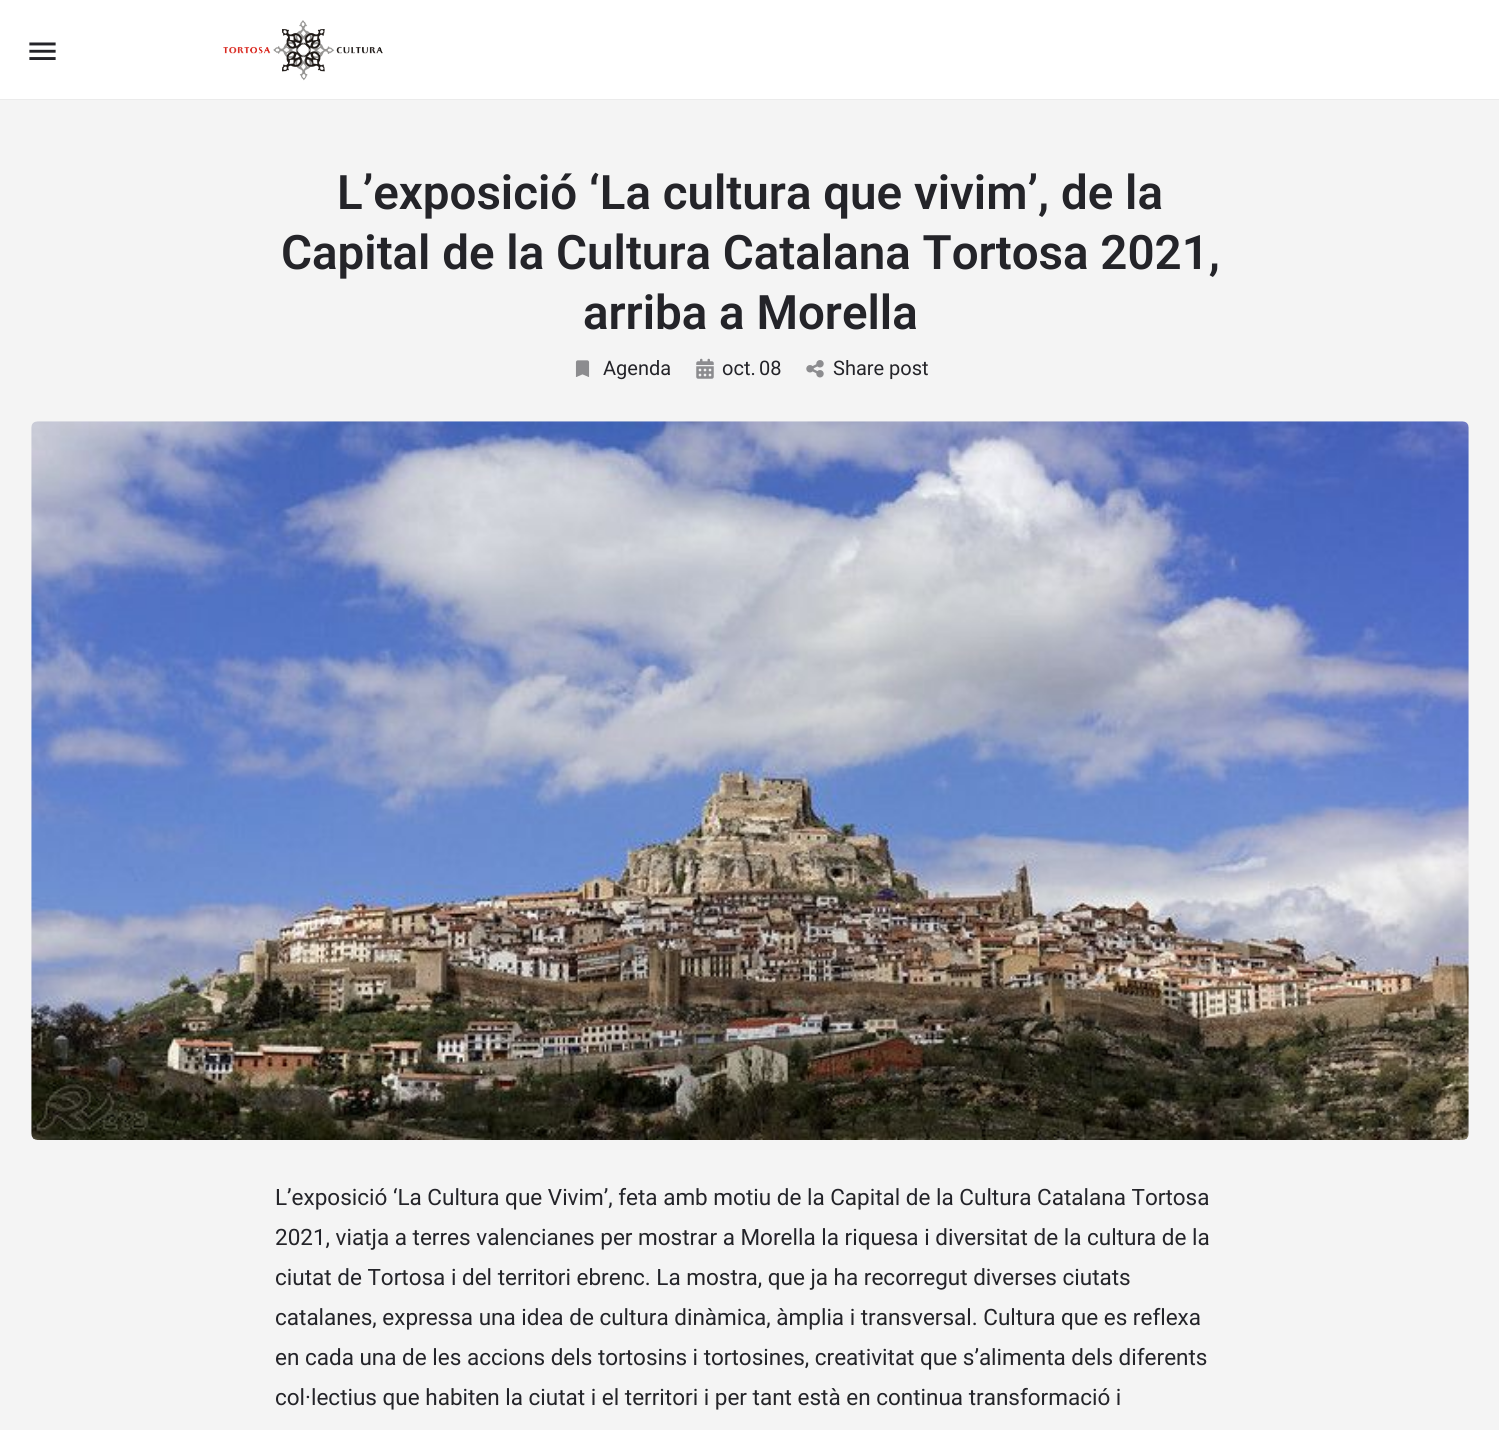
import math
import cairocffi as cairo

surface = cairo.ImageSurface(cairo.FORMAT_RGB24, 1499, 1430)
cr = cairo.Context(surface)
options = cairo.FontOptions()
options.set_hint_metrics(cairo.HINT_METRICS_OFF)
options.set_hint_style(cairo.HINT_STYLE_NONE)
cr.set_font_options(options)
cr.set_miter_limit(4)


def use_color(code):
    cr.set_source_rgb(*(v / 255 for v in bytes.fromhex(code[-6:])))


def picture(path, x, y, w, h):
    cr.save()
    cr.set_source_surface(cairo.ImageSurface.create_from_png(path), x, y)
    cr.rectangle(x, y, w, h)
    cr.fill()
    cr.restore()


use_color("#f4f4f4")
cr.paint()
use_color("#ffffff")
cr.rectangle(0, 0, 1499, 99)
cr.fill()
use_color("#ebebeb")
cr.rectangle(0, 99, 1499, 1)
cr.fill()
picture("img1.png", 29, 42, 27, 18)
picture("img2.png", 223, 20, 160, 61)
cr.select_font_face("Roboto SemiBold")
cr.set_font_size(47.5)
use_color("#242429")
cr.move_to(337, 209)
cr.show_text("L’exposició ‘La cultura que vivim’, de la")
cr.move_to(281, 269)
cr.show_text("Capital de la Cultura Catalana Tortosa 2021,")
cr.move_to(583, 329)
cr.show_text("arriba a Morella")
picture("img3.png", 575, 360, 15, 17)
cr.select_font_face("Roboto")
cr.set_font_size(20)
cr.move_to(603, 375)
cr.show_text("Agenda")
picture("img4.png", 696, 358, 18, 21)
cr.move_to(722, 375)
cr.show_text("oct.")
cr.move_to(759, 375)
cr.show_text("08")
picture("img5.png", 806, 360, 18, 18)
cr.move_to(833, 375)
cr.show_text("Share post")
picture("img6.png", 31, 421, 1438, 719)
cr.set_font_size(22.5)
cr.move_to(275, 1205)
cr.show_text("L’exposició ‘La Cultura que Vivim’, feta amb motiu de la Capital de la Cultura Catalana Tortosa")
cr.move_to(275, 1245)
cr.show_text("2021, viatja a terres valencianes per mostrar a Morella la riquesa i diversitat de la cultura de la")
cr.move_to(275, 1285)
cr.show_text("ciutat de Tortosa i del territori ebrenc. La mostra, que ja ha recorregut diverses ciutats")
cr.move_to(275, 1325)
cr.show_text("catalanes, expressa una idea de cultura dinàmica, àmplia i transversal. Cultura que es reflexa")
cr.move_to(275, 1365)
cr.show_text("en cada una de les accions dels tortosins i tortosines, creativitat que s’alimenta dels diferents")
cr.move_to(275, 1405)
cr.show_text("col·lectius que habiten la ciutat i el territori i per tant està en continua transformació i")
surface.write_to_png("result.png")
